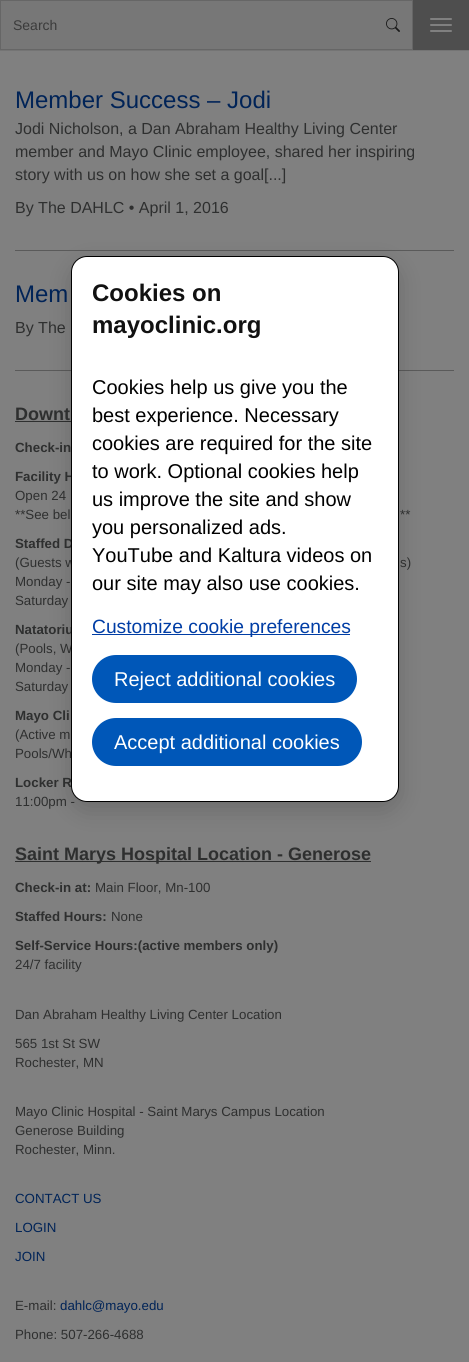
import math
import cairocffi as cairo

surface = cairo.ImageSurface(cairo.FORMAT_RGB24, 469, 1362)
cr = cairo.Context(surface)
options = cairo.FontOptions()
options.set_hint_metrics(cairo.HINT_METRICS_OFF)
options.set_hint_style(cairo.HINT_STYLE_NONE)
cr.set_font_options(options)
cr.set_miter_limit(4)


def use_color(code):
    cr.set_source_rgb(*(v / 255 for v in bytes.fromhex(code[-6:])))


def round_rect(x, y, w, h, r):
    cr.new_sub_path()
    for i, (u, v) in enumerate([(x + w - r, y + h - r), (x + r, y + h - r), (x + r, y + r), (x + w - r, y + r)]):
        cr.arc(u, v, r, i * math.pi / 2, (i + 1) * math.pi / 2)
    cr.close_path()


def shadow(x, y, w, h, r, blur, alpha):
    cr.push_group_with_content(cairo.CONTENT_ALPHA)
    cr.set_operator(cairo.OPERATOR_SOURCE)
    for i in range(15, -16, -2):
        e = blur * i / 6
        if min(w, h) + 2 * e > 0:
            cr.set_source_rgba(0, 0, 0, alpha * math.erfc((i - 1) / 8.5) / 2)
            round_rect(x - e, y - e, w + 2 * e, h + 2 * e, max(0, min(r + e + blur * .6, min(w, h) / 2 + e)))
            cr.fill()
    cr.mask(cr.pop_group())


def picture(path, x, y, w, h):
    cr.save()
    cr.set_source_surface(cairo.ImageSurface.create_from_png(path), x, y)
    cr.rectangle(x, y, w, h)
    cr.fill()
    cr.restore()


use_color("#808080")
cr.paint()
use_color("#747474")
cr.rectangle(0, 50, 469, 1)
cr.fill()
use_color("#777777")
cr.rectangle(0.5, 0.5, 374, 49)
cr.fill_preserve()
use_color("#666666")
cr.set_line_width(1)
cr.stroke()
cr.select_font_face("Liberation Sans")
cr.set_font_size(14)
use_color("#3b3b3b")
cr.move_to(13, 30)
cr.show_text("Search")
use_color("#777777")
cr.rectangle(374, 1, 38, 48)
cr.fill()
use_color("#666666")
cr.rectangle(374, 0, 39, 1)
cr.fill()
cr.rectangle(412, 0, 1, 50)
cr.fill()
cr.rectangle(374, 49, 39, 1)
cr.fill()
picture("img1.png", 386, 18, 14, 14)
use_color("#4e4e4e")
cr.rectangle(413, 0, 56, 50)
cr.fill()
use_color("#808080")
round_rect(430, 18, 22, 2, 1)
cr.fill()
round_rect(430, 24, 22, 2, 1)
cr.fill()
round_rect(430, 30, 22, 2, 1)
cr.fill()
use_color("#5a5a5a")
cr.rectangle(15, 250, 439, 1)
cr.fill()
cr.set_font_size(24)
use_color("#002357")
cr.move_to(15, 108)
cr.show_text("Member Success – Jodi")
cr.set_font_size(16)
use_color("#2e2f2f")
cr.move_to(15, 134)
cr.show_text("Jodi Nicholson, a Dan Abraham Healthy Living Center")
cr.move_to(15, 157)
cr.show_text("member and Mayo Clinic employee, shared her inspiring")
cr.move_to(15, 180)
cr.show_text("story with us on how she set a goal[...]")
cr.move_to(15, 213)
cr.show_text("By The DAHLC • April 1, 2016")
use_color("#5a5a5a")
cr.rectangle(15, 370, 439, 1)
cr.fill()
cr.set_font_size(24)
use_color("#002357")
cr.move_to(15, 302)
cr.show_text("Mem")
cr.set_font_size(16)
use_color("#2e2f2f")
cr.move_to(15, 333)
cr.show_text("By The")
cr.rectangle(15, 421, 56, 1)
cr.fill()
use_color("#000000")
shadow(71, 264, 328, 546, 16, 12, 0.16)
cr.select_font_face("Liberation Sans", cairo.FONT_SLANT_NORMAL, cairo.FONT_WEIGHT_BOLD)
cr.set_font_size(13.3)
use_color("#2e2f2f")
cr.move_to(15, 481)
cr.show_text("Facility H")
cr.move_to(15, 548)
cr.show_text("Staffed D")
cr.select_font_face("Liberation Sans")
cr.move_to(15, 567)
cr.show_text("(Guests w")
cr.select_font_face("Liberation Sans", cairo.FONT_SLANT_NORMAL, cairo.FONT_WEIGHT_BOLD)
cr.move_to(15, 634)
cr.show_text("Natatoriu")
cr.select_font_face("Liberation Sans")
cr.move_to(15, 653)
cr.show_text("(Pools, W")
cr.move_to(15, 758)
cr.show_text("Pools/Wh")
cr.select_font_face("Liberation Sans", cairo.FONT_SLANT_NORMAL, cairo.FONT_WEIGHT_BOLD)
cr.move_to(15, 787)
cr.show_text("Locker R")
cr.select_font_face("Liberation Sans")
cr.move_to(15, 806)
cr.show_text("11:00pm -")
use_color("#ffffff")
round_rect(71.5, 256.5, 327, 545, 15.5)
cr.fill_preserve()
use_color("#000000")
cr.stroke()
cr.select_font_face("Liberation Sans", cairo.FONT_SLANT_NORMAL, cairo.FONT_WEIGHT_BOLD)
cr.set_font_size(24)
use_color("#111111")
cr.move_to(92, 301)
cr.show_text("Cookies on")
cr.move_to(92, 333)
cr.show_text("mayoclinic.org")
cr.select_font_face("Liberation Sans")
cr.set_font_size(20)
use_color("#000000")
cr.move_to(92, 394)
cr.show_text("Cookies help us give you the")
cr.move_to(92, 422)
cr.show_text("best experience. Necessary")
cr.move_to(92, 450)
cr.show_text("cookies are required for the site")
cr.move_to(92, 478)
cr.show_text("to work. Optional cookies help")
cr.move_to(92, 506)
cr.show_text("us improve the site and show")
cr.move_to(92, 534)
cr.show_text("you personalized ads.")
cr.move_to(92, 562)
cr.show_text("YouTube and Kaltura videos on")
cr.move_to(92, 590)
cr.show_text("our site may also use cookies.")
use_color("#003da5")
cr.rectangle(92, 634, 258, 1)
cr.fill()
cr.set_font_size(19.25)
cr.move_to(92, 633)
cr.show_text("Customize cookie preferences")
use_color("#0057b8")
round_rect(93, 656, 263, 46, 23)
cr.fill_preserve()
cr.set_line_width(2)
cr.stroke()
cr.set_font_size(20)
use_color("#ffffff")
cr.move_to(114, 686)
cr.show_text("Reject additional cookies")
use_color("#0057b8")
round_rect(93, 719, 268, 46, 23)
cr.fill_preserve()
cr.stroke()
use_color("#ffffff")
cr.move_to(114, 749)
cr.show_text("Accept additional cookies")
cr.select_font_face("Liberation Sans", cairo.FONT_SLANT_NORMAL, cairo.FONT_WEIGHT_BOLD)
cr.set_font_size(18)
use_color("#2e2f2f")
cr.move_to(15, 420)
cr.show_text("Downt")
cr.set_font_size(13.3)
cr.move_to(15, 452)
cr.show_text("Check-in")
cr.select_font_face("Liberation Sans")
cr.move_to(15, 500)
cr.show_text("Open 24")
cr.move_to(15, 519)
cr.show_text("**See bel")
cr.move_to(400, 519)
cr.show_text("**")
cr.move_to(400, 567)
cr.show_text("s)")
cr.move_to(15, 586)
cr.show_text("Monday -")
cr.move_to(15, 605)
cr.show_text("Saturday")
cr.move_to(15, 672)
cr.show_text("Monday -")
cr.move_to(15, 691)
cr.show_text("Saturday")
cr.select_font_face("Liberation Sans", cairo.FONT_SLANT_NORMAL, cairo.FONT_WEIGHT_BOLD)
cr.move_to(15, 720)
cr.show_text("Mayo Cli")
cr.select_font_face("Liberation Sans")
cr.move_to(15, 739)
cr.show_text("(Active m")
cr.rectangle(15, 861, 356, 1)
cr.fill()
cr.select_font_face("Liberation Sans", cairo.FONT_SLANT_NORMAL, cairo.FONT_WEIGHT_BOLD)
cr.set_font_size(18)
cr.move_to(15, 860)
cr.show_text("Saint Marys Hospital Location - Generose")
cr.set_font_size(13.3)
cr.move_to(15, 892)
cr.show_text("Check-in at:")
cr.select_font_face("Liberation Sans")
cr.move_to(95, 892)
cr.show_text("Main Floor, Mn-100")
cr.select_font_face("Liberation Sans", cairo.FONT_SLANT_NORMAL, cairo.FONT_WEIGHT_BOLD)
cr.move_to(15, 921)
cr.show_text("Staffed Hours:")
cr.select_font_face("Liberation Sans")
cr.move_to(111, 921)
cr.show_text("None")
cr.select_font_face("Liberation Sans", cairo.FONT_SLANT_NORMAL, cairo.FONT_WEIGHT_BOLD)
cr.move_to(15, 950)
cr.show_text("Self-Service Hours:(active members only)")
cr.select_font_face("Liberation Sans")
cr.move_to(15, 969)
cr.show_text("24/7 facility")
cr.move_to(15, 1019)
cr.show_text("Dan Abraham Healthy Living Center Location")
cr.move_to(15, 1048)
cr.show_text("565 1st St SW")
cr.move_to(15, 1067)
cr.show_text("Rochester, MN")
cr.move_to(15, 1116)
cr.show_text("Mayo Clinic Hospital - Saint Marys Campus Location")
cr.move_to(15, 1135)
cr.show_text("Generose Building")
cr.move_to(15, 1154)
cr.show_text("Rochester, Minn.")
use_color("#002357")
cr.move_to(15, 1203)
cr.show_text("CONTACT US")
cr.move_to(15, 1232)
cr.show_text("LOGIN")
cr.move_to(15, 1261)
cr.show_text("JOIN")
use_color("#2e2f2f")
cr.move_to(15, 1310)
cr.show_text("E-mail:")
use_color("#002357")
cr.move_to(60, 1310)
cr.show_text("dahlc@mayo.edu")
use_color("#2e2f2f")
cr.move_to(15, 1339)
cr.show_text("Phone: 507-266-4688")
surface.write_to_png("result.png")
